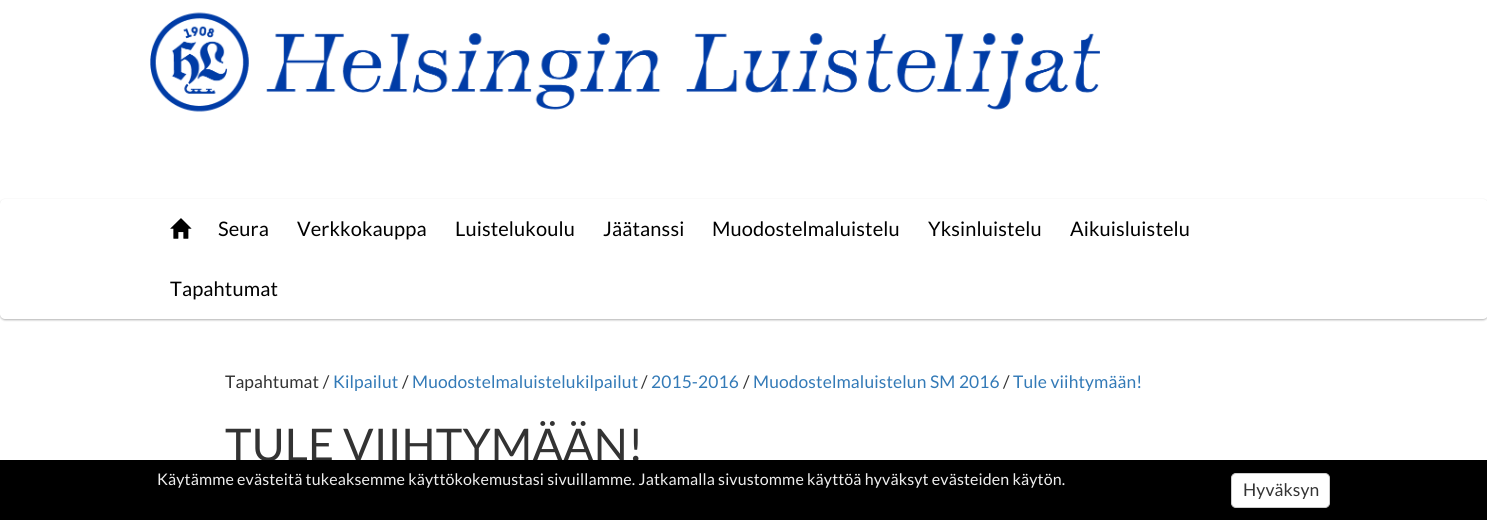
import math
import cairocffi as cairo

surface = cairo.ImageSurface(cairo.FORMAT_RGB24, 1487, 520)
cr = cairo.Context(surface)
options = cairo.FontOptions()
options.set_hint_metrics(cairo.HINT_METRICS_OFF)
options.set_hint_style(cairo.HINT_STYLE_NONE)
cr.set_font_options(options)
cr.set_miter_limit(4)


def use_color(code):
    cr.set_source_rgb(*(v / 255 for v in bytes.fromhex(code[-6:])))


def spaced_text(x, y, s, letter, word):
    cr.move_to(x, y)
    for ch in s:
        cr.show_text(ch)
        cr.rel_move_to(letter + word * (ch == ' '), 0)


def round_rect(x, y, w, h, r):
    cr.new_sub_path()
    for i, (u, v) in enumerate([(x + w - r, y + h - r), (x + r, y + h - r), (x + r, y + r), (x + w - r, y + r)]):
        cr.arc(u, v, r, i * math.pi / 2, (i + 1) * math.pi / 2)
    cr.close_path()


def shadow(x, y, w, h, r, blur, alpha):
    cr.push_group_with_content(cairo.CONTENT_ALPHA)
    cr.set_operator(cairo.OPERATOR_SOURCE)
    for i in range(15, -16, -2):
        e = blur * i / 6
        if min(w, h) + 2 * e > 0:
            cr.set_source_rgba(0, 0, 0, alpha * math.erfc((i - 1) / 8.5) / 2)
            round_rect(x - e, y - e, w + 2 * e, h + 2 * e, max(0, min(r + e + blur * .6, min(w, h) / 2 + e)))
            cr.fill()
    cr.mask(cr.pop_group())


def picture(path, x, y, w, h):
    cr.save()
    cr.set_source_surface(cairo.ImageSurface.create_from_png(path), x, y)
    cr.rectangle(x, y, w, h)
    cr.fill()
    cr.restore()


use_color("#ffffff")
cr.paint()
picture("img1.png", 150, 12, 950, 100)
use_color("#000000")
shadow(0, 200, 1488, 120, 5, 1, 0.3)
use_color("#ffffff")
round_rect(0, 199, 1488, 120, 5)
cr.fill()
picture("img2.png", 170, 218, 22, 21)
cr.select_font_face("Lato")
cr.set_font_size(20)
use_color("#000000")
spaced_text(218, 236, "Seura", 0.12, 0)
spaced_text(297, 236, "Verkkokauppa", 0.12, 0)
spaced_text(455, 236, "Luistelukoulu", 0.12, 0)
spaced_text(603, 236, "Jäätanssi", 0.12, 0)
spaced_text(712, 236, "Muodostelmaluistelu", 0.12, 0)
spaced_text(928, 236, "Yksinluistelu", 0.12, 0)
spaced_text(1070, 236, "Aikuisluistelu", 0.12, 0)
spaced_text(170, 296, "Tapahtumat", 0.12, 0)
cr.set_font_size(17.4)
use_color("#333333")
spaced_text(225, 388, "Tapahtumat /", 0.12, 0)
use_color("#337ab7")
spaced_text(333, 388, "Kilpailut", 0.12, 0)
use_color("#333333")
spaced_text(402, 388, "/", 0.12, 0)
use_color("#337ab7")
spaced_text(412, 388, "Muodostelmaluistelukilpailut", 0.12, 0)
use_color("#333333")
spaced_text(641, 388, "/", 0.12, 0)
use_color("#337ab7")
spaced_text(651, 388, "2015-2016", 0.12, 0)
use_color("#333333")
spaced_text(743, 388, "/", 0.12, 0)
use_color("#337ab7")
spaced_text(753, 388, "Muodostelmaluistelun SM 2016", 0.12, 0)
use_color("#333333")
spaced_text(1003, 388, "/", 0.12, 0)
use_color("#337ab7")
spaced_text(1013, 388, "Tule viihtymään!", 0.12, 0)
cr.set_font_size(45)
use_color("#333333")
spaced_text(225, 461, "TULE VIIHTYMÄÄN!", 0.12, 0)
use_color("#000000")
cr.rectangle(0, 460, 1487, 60)
cr.fill()
cr.set_font_size(16)
use_color("#eeeeee")
spaced_text(157, 485, "Käytämme evästeitä tukeaksemme käyttökokemustasi sivuillamme. Jatkamalla sivustomme käyttöä hyväksyt evästeiden käytön.", 0.12, 0)
use_color("#ffffff")
round_rect(1231.5, 473.5, 98, 34, 4.5)
cr.fill_preserve()
use_color("#cccccc")
cr.set_line_width(1)
cr.stroke()
cr.set_font_size(17.5)
use_color("#333333")
spaced_text(1243, 496, "Hyväksyn", 0.12, 0)
surface.write_to_png("result.png")
